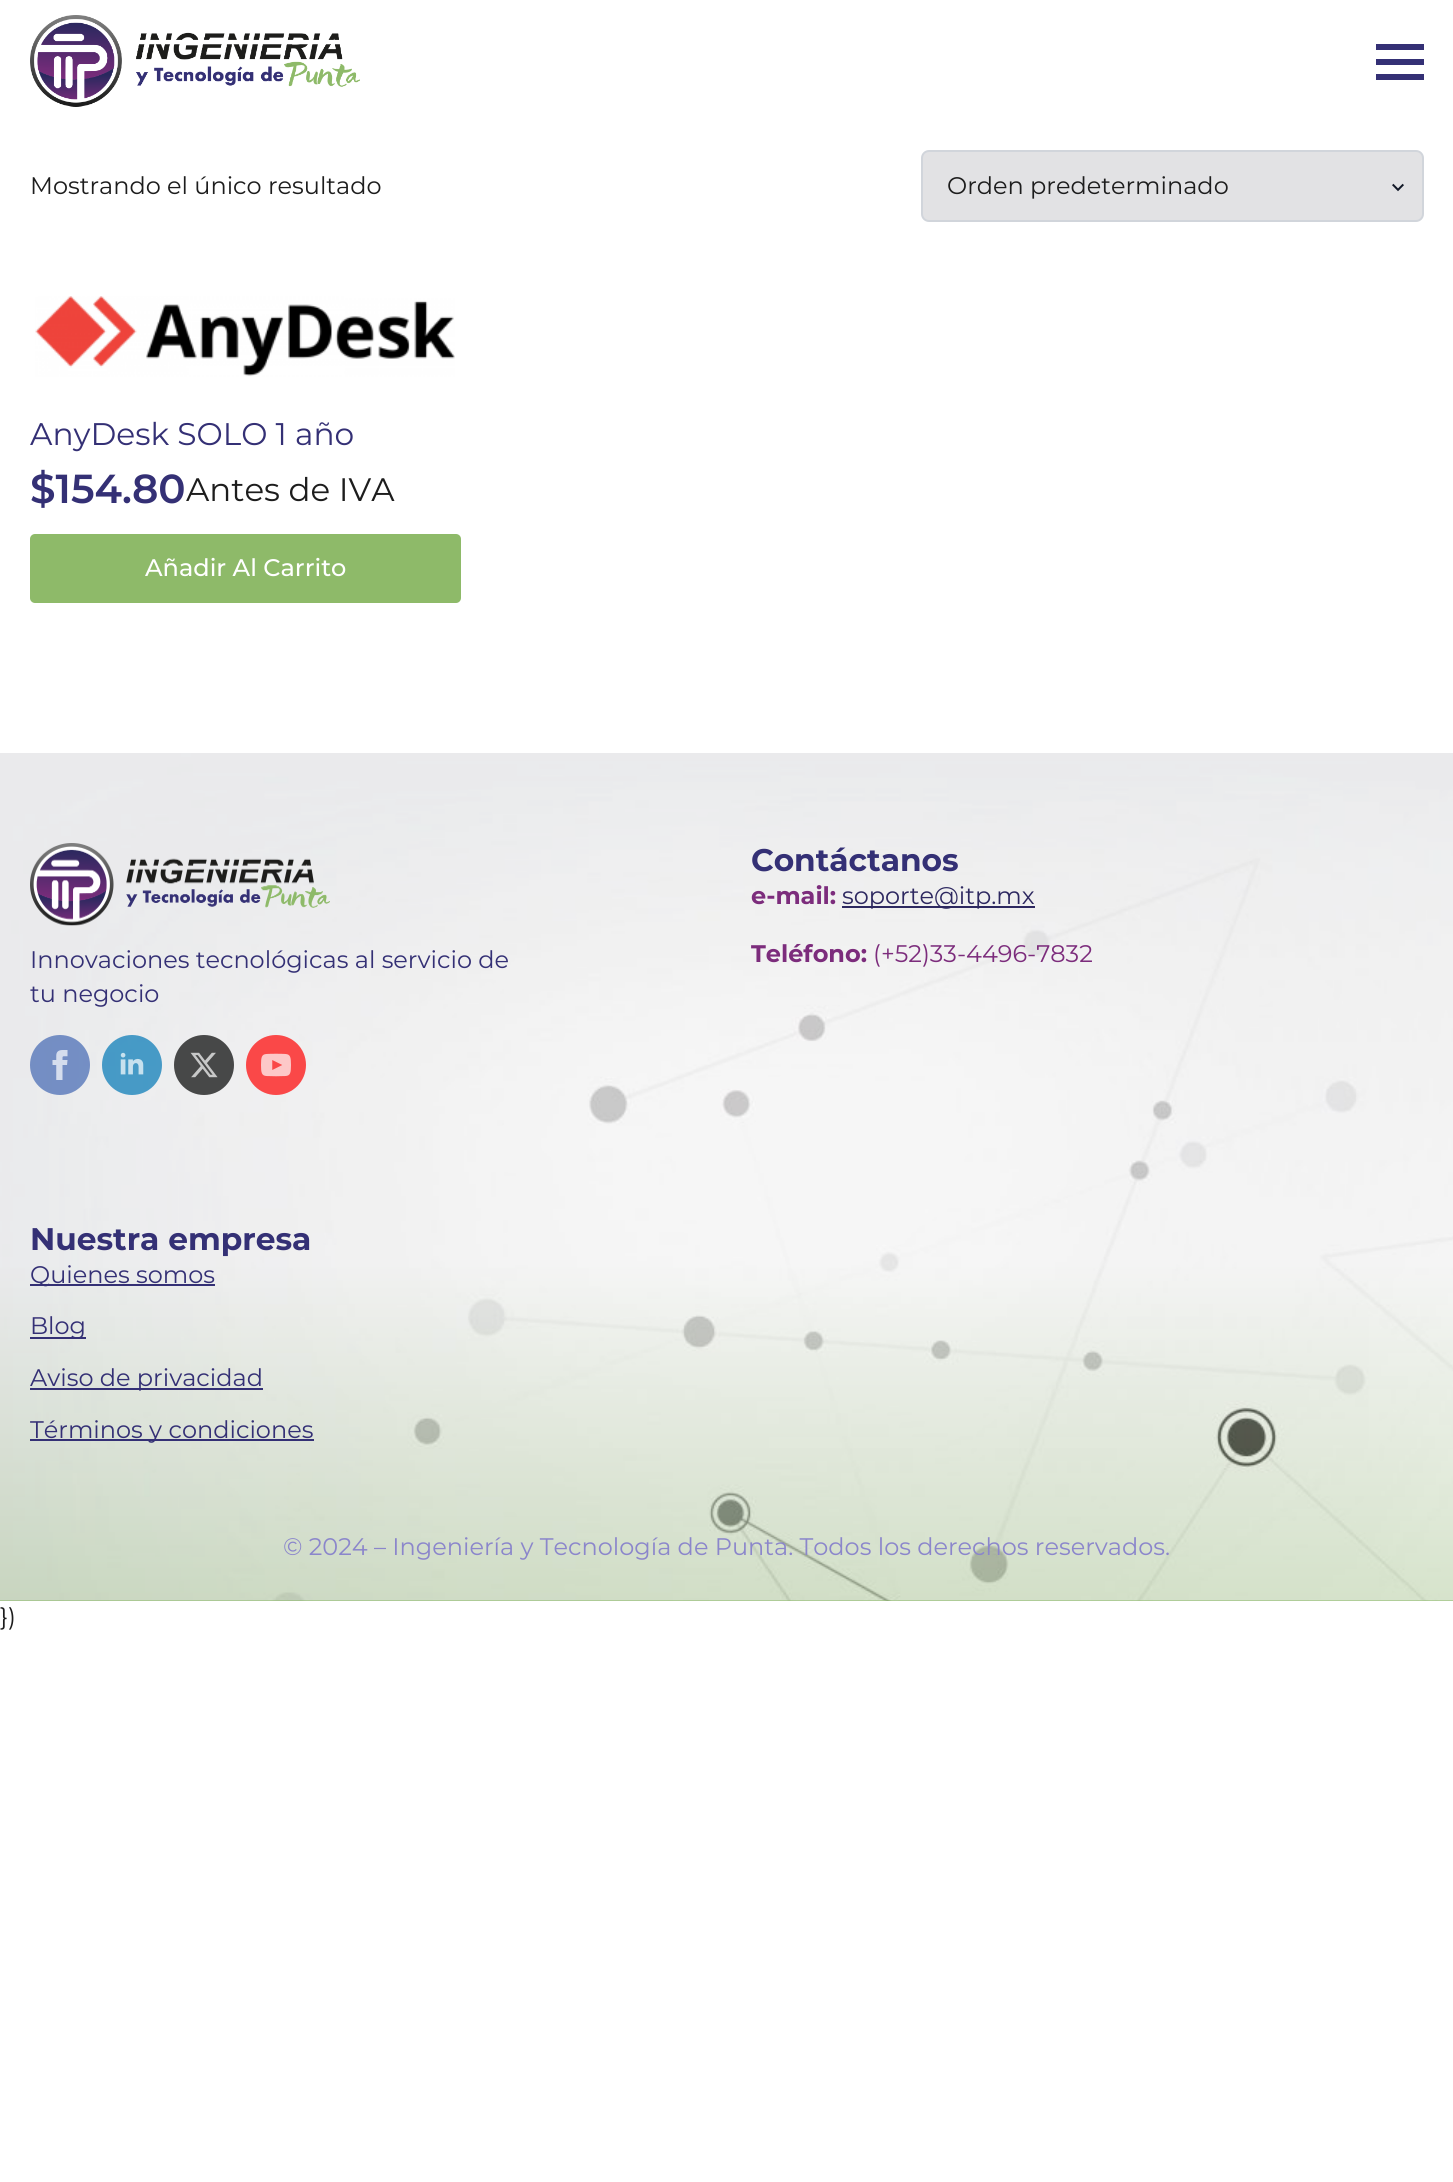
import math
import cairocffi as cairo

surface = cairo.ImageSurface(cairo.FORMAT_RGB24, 1453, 2182)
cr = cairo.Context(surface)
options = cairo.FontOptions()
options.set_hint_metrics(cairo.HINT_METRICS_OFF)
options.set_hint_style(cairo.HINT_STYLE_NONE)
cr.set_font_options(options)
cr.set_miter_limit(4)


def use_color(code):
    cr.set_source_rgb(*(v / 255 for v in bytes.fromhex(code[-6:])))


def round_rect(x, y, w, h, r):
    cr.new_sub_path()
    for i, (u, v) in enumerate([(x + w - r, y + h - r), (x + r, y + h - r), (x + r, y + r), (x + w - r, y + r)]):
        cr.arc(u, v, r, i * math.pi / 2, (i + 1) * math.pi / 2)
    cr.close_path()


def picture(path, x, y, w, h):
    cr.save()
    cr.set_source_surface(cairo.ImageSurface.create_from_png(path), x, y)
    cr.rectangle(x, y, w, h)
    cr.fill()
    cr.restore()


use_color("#ffffff")
cr.paint()
picture("img1.png", 30, 15, 330, 92)
use_color("#343075")
cr.rectangle(1376, 59, 48, 6)
cr.fill()
cr.rectangle(1376, 44, 48, 6)
cr.fill()
cr.rectangle(1376, 74, 48, 6)
cr.fill()
cr.select_font_face("Montserrat")
cr.set_font_size(24)
use_color("#1d1d1d")
cr.move_to(30, 194)
cr.show_text("Mostrando el único resultado")
use_color("#e2e2e4")
round_rect(922, 151, 501, 70, 7)
cr.fill_preserve()
use_color("#d1d5db")
cr.stroke()
use_color("#1d1d1d")
cr.move_to(947, 194)
cr.show_text("Orden predeterminado")
picture("img2.png", 1392, 183, 12, 9)
picture("img3.png", 35, 296, 420, 81)
cr.set_font_size(31.25)
use_color("#343075")
cr.move_to(30, 445)
cr.show_text("AnyDesk SOLO 1 año")
cr.select_font_face("Montserrat SemiBold")
cr.set_font_size(40.5)
cr.move_to(30, 503)
cr.show_text("$154.80")
cr.select_font_face("Montserrat")
cr.set_font_size(32.5)
use_color("#1d1d1d")
cr.move_to(186, 501)
cr.show_text("Antes de IVA")
use_color("#8eba69")
round_rect(30, 534, 431, 69, 5)
cr.fill()
cr.select_font_face("Montserrat Medium")
cr.set_font_size(24)
use_color("#ffffff")
cr.move_to(145, 576)
cr.show_text("Añadir Al Carrito")
gradient = cairo.LinearGradient(727, 1601, 727, 753)
gradient.add_color_stop_rgba(0, 0.553, 0.725, 0.412, 1)
gradient.add_color_stop_rgba(0.4, 1, 1, 1, 1)
cr.set_source(gradient)
cr.rectangle(0, 1267, 1453, 334)
cr.fill()
picture("img4.png", 0, 753, 1453, 848)
cr.select_font_face("Montserrat", cairo.FONT_SLANT_NORMAL, cairo.FONT_WEIGHT_BOLD)
cr.set_font_size(31.25)
use_color("#343075")
cr.move_to(751, 871)
cr.show_text("Contáctanos")
cr.set_font_size(24)
use_color("#7c2c7c")
cr.move_to(751, 904)
cr.show_text("e-mail:")
use_color("#2d2860")
cr.rectangle(842, 906, 193, 2)
cr.fill()
cr.select_font_face("Montserrat")
cr.move_to(842, 904)
cr.show_text("soporte@itp.mx")
cr.select_font_face("Montserrat", cairo.FONT_SLANT_NORMAL, cairo.FONT_WEIGHT_BOLD)
use_color("#7c2c7c")
cr.move_to(751, 962)
cr.show_text("Teléfono:")
cr.select_font_face("Montserrat")
cr.move_to(873, 962)
cr.show_text("(+52)33-4496-7832")
picture("img5.png", 30, 843, 300, 83)
use_color("#343075")
cr.move_to(30, 968)
cr.show_text("Innovaciones tecnológicas al servicio de")
cr.move_to(30, 1002)
cr.show_text("tu negocio")
cr.set_source_rgba(0.259, 0.404, 0.698, 0.7)
cr.new_path()
cr.arc(60, 1065, 30, 0, 2 * math.pi)
cr.fill()
picture("img6.png", 52, 1050, 16, 30)
cr.set_source_rgba(0, 0.467, 0.71, 0.7)
cr.arc(132, 1065, 30, 0, 2 * math.pi)
cr.fill()
picture("img7.png", 120, 1052, 24, 23)
use_color("#474848")
cr.arc(204, 1065, 30, 0, 2 * math.pi)
cr.fill()
picture("img8.png", 190, 1052, 28, 26)
use_color("#fa4848")
cr.arc(276, 1065, 30, 0, 2 * math.pi)
cr.fill()
picture("img9.png", 261, 1053, 30, 24)
cr.select_font_face("Montserrat", cairo.FONT_SLANT_NORMAL, cairo.FONT_WEIGHT_BOLD)
cr.set_font_size(31.25)
use_color("#343075")
cr.move_to(30, 1250)
cr.show_text("Nuestra empresa")
cr.rectangle(30, 1284, 185, 2)
cr.fill()
cr.select_font_face("Montserrat")
cr.set_font_size(24)
cr.move_to(30, 1283)
cr.show_text("Quienes somos")
cr.rectangle(30, 1337, 56, 2)
cr.fill()
cr.move_to(30, 1334)
cr.show_text("Blog")
cr.rectangle(30, 1388, 233, 2)
cr.fill()
cr.move_to(30, 1386)
cr.show_text("Aviso de privacidad")
cr.rectangle(30, 1439, 284, 2)
cr.fill()
cr.move_to(30, 1438)
cr.show_text("Términos y condiciones")
use_color("#8b86cb")
cr.move_to(283, 1555)
cr.show_text("© 2024 – Ingeniería y Tecnología de Punta. Todos los derechos reservados.")
use_color("#1d1d1d")
cr.move_to(0, 1625)
cr.show_text("})")
surface.write_to_png("result.png")
